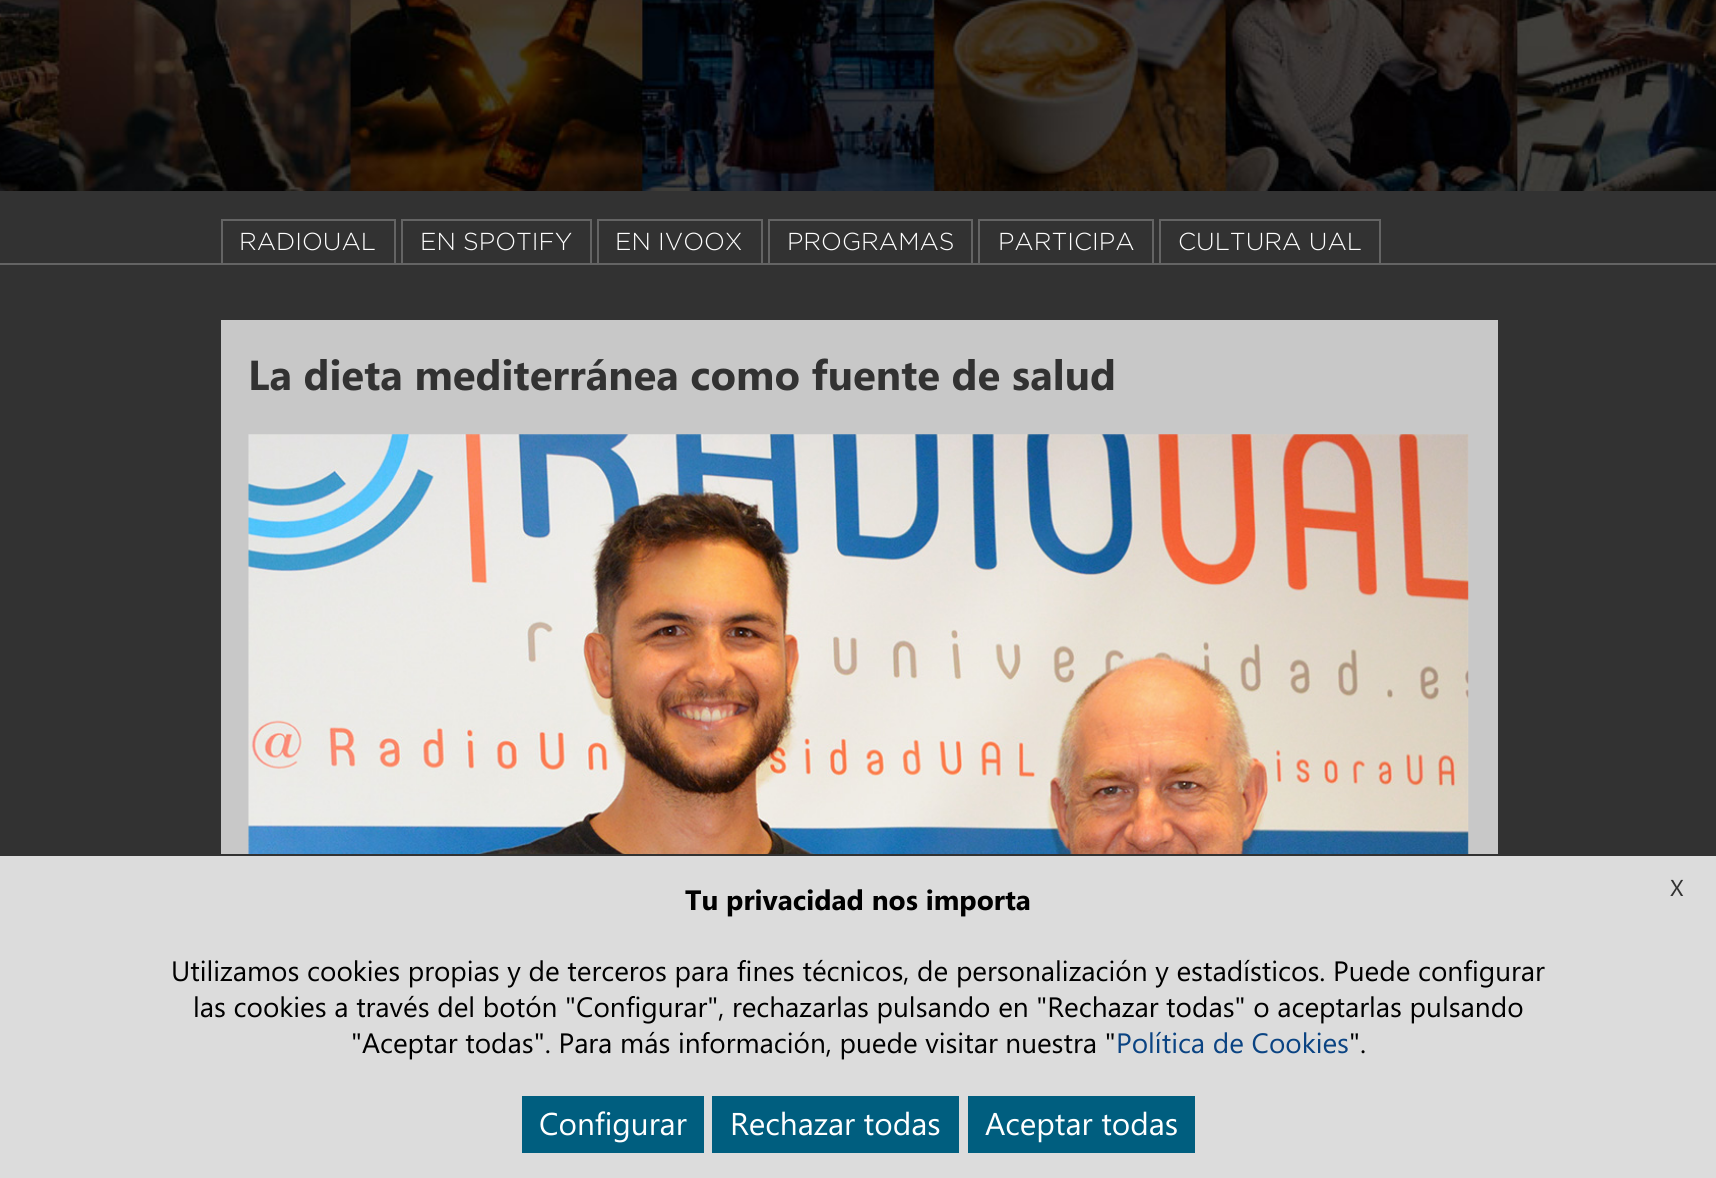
import math
import cairocffi as cairo

surface = cairo.ImageSurface(cairo.FORMAT_RGB24, 1716, 1178)
cr = cairo.Context(surface)
options = cairo.FontOptions()
options.set_hint_metrics(cairo.HINT_METRICS_OFF)
options.set_hint_style(cairo.HINT_STYLE_NONE)
cr.set_font_options(options)
cr.set_miter_limit(4)


def use_color(code):
    cr.set_source_rgb(*(v / 255 for v in bytes.fromhex(code[-6:])))


def picture(path, x, y, w, h):
    cr.save()
    cr.set_source_surface(cairo.ImageSurface.create_from_png(path), x, y)
    cr.rectangle(x, y, w, h)
    cr.fill()
    cr.restore()


use_color("#ffffff")
cr.paint()
picture("img1.png", 0, 0, 1716, 191)
use_color("#323232")
cr.rectangle(0, 191, 1716, 72)
cr.fill()
use_color("#646464")
cr.rectangle(0, 263, 1716, 2)
cr.fill()
cr.rectangle(221, 219, 175, 2)
cr.fill()
cr.rectangle(394, 219, 2, 44)
cr.fill()
cr.rectangle(221, 219, 2, 44)
cr.fill()
cr.select_font_face("Gotham Light")
cr.set_font_size(24.5)
use_color("#ffffff")
cr.move_to(239, 250)
cr.show_text("RADIOUAL")
use_color("#646464")
cr.rectangle(401, 219, 191, 2)
cr.fill()
cr.rectangle(590, 219, 2, 44)
cr.fill()
cr.rectangle(401, 219, 2, 44)
cr.fill()
use_color("#ffffff")
cr.move_to(420, 250)
cr.show_text("EN SPOTIFY")
use_color("#646464")
cr.rectangle(597, 219, 166, 2)
cr.fill()
cr.rectangle(761, 219, 2, 44)
cr.fill()
cr.rectangle(597, 219, 2, 44)
cr.fill()
use_color("#ffffff")
cr.move_to(615, 250)
cr.show_text("EN IVOOX")
use_color("#646464")
cr.rectangle(768, 219, 205, 2)
cr.fill()
cr.rectangle(971, 219, 2, 44)
cr.fill()
cr.rectangle(768, 219, 2, 44)
cr.fill()
use_color("#ffffff")
cr.move_to(787, 250)
cr.show_text("PROGRAMAS")
use_color("#646464")
cr.rectangle(978, 219, 175, 2)
cr.fill()
cr.rectangle(1152, 219, 2, 44)
cr.fill()
cr.rectangle(978, 219, 2, 44)
cr.fill()
use_color("#ffffff")
cr.move_to(998, 250)
cr.show_text("PARTICIPA")
use_color("#646464")
cr.rectangle(1159, 219, 222, 2)
cr.fill()
cr.rectangle(1379, 219, 2, 44)
cr.fill()
cr.rectangle(1159, 219, 2, 44)
cr.fill()
use_color("#ffffff")
cr.move_to(1178, 250)
cr.show_text("CULTURA UAL")
use_color("#323232")
cr.rectangle(0, 265, 1716, 591)
cr.fill()
use_color("#c8c8c8")
cr.rectangle(221, 320, 1277, 534)
cr.fill()
cr.select_font_face("Segoe UI", cairo.FONT_SLANT_NORMAL, cairo.FONT_WEIGHT_BOLD)
cr.set_font_size(41.9)
use_color("#323232")
cr.move_to(248, 390)
cr.show_text("La dieta mediterránea como fuente de salud")
picture("img2.png", 248, 434, 1221, 420)
use_color("#dcdcdc")
cr.rectangle(0, 856, 1716, 322)
cr.fill()
cr.set_font_size(28)
use_color("#000000")
cr.move_to(685, 910)
cr.show_text("Tu privacidad nos importa")
cr.select_font_face("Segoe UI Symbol")
cr.move_to(171, 981)
cr.show_text("Utilizamos cookies propias y de terceros para fines técnicos, de personalización y estadísticos. Puede configurar")
cr.move_to(193, 1017)
cr.show_text("las cookies a través del botón \"Configurar\", rechazarlas pulsando en \"Rechazar todas\" o aceptarlas pulsando")
cr.move_to(351, 1053)
cr.show_text("\"Aceptar todas\". Para más información, puede visitar nuestra \"")
use_color("#0a4382")
cr.move_to(1116, 1053)
cr.show_text("Política de Cookies")
use_color("#000000")
cr.move_to(1349, 1053)
cr.show_text("\".")
use_color("#005e7f")
cr.rectangle(522, 1096, 182, 57)
cr.fill()
cr.set_font_size(31.5)
use_color("#ffffff")
cr.move_to(539, 1135)
cr.show_text("Configurar")
use_color("#005e7f")
cr.rectangle(712, 1096, 247, 57)
cr.fill()
use_color("#ffffff")
cr.move_to(730, 1135)
cr.show_text("Rechazar todas")
use_color("#005e7f")
cr.rectangle(968, 1096, 227, 57)
cr.fill()
use_color("#ffffff")
cr.move_to(985, 1135)
cr.show_text("Aceptar todas")
cr.set_font_size(23)
use_color("#323232")
cr.move_to(1670, 896)
cr.show_text("X")
surface.write_to_png("result.png")
